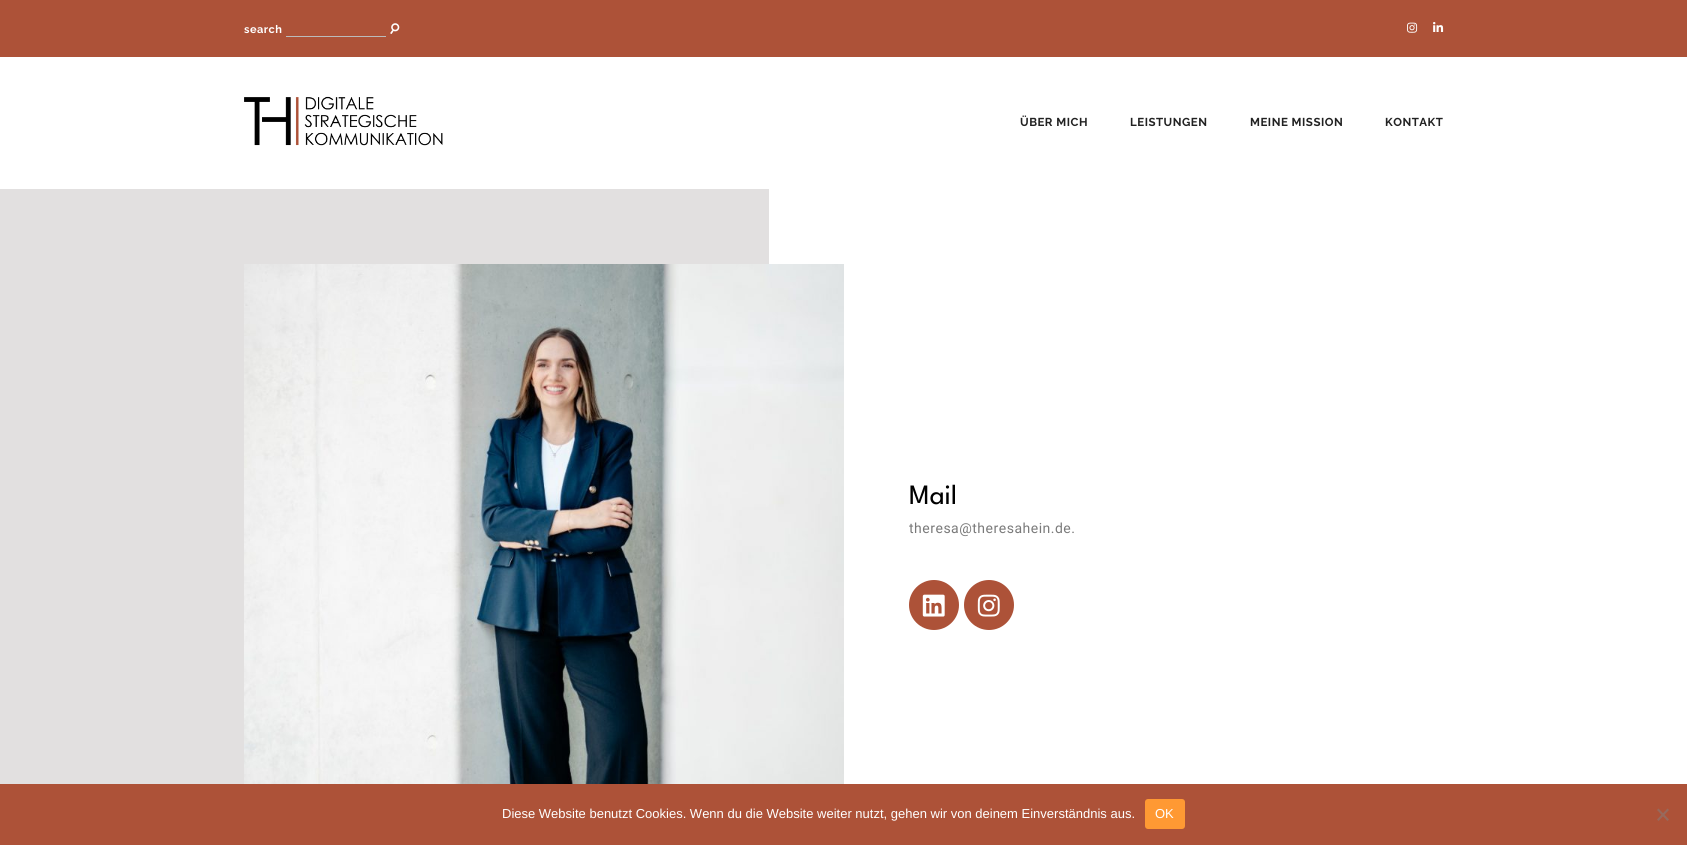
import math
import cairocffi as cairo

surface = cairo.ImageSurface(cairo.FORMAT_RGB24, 1687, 845)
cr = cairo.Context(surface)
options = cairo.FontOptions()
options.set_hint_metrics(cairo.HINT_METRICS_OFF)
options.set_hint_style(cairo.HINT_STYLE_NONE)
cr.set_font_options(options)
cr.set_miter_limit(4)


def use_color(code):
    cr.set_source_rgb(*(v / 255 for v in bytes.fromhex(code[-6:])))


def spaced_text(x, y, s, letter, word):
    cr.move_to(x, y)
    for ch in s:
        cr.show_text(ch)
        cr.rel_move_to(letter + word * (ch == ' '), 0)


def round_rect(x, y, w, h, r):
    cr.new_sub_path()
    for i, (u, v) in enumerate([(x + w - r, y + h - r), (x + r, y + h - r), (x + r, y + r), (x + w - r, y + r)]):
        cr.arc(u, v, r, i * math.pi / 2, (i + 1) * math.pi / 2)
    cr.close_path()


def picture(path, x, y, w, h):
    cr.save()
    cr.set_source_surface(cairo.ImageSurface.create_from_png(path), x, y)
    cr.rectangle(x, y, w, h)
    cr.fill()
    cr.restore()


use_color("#ffffff")
cr.paint()
use_color("#ad5238")
cr.rectangle(0, 0, 1687, 57)
cr.fill()
cr.select_font_face("Raleway Thin")
cr.set_font_size(11)
use_color("#ffffff")
spaced_text(244, 33, "search", 0.5, 0)
picture("img1.png", 390, 23, 10, 11)
use_color("#bbbbbb")
cr.rectangle(286, 36, 100, 1)
cr.fill()
picture("img2.png", 1407, 22, 11, 11)
picture("img3.png", 1433, 22, 11, 10)
picture("img4.png", 244, 96, 199, 50)
cr.set_font_size(11.5)
use_color("#222222")
spaced_text(1020, 126, "ÜBER MICH", 0.5, 0)
spaced_text(1130, 126, "LEISTUNGEN", 0.5, 0)
spaced_text(1250, 126, "MEINE MISSION", 0.5, 0)
spaced_text(1385, 126, "KONTAKT", 0.5, 0)
use_color("#e2e0e0")
cr.rectangle(0, 189, 769, 595)
cr.fill()
picture("img5.png", 244, 264, 600, 520)
cr.select_font_face("League Spartan")
cr.set_font_size(28)
use_color("#000000")
cr.move_to(909, 504)
cr.show_text("Mail")
cr.select_font_face("Roboto")
cr.set_font_size(14)
use_color("#7a7a7a")
spaced_text(909, 533, "theresa@theresahein.de.", 0.5, 0)
use_color("#ad5238")
cr.new_path()
cr.arc(934, 605, 25, 0, 2 * math.pi)
cr.fill()
picture("img6.png", 922, 594, 23, 23)
cr.arc(989, 605, 25, 0, 2 * math.pi)
cr.fill()
picture("img7.png", 977, 594, 23, 23)
cr.rectangle(0, 784, 1687, 61)
cr.fill()
cr.select_font_face("Liberation Sans")
cr.set_font_size(13)
use_color("#ffffff")
cr.move_to(502, 818)
cr.show_text("Diese Website benutzt Cookies. Wenn du die Website weiter nutzt, gehen wir von deinem Einverständnis aus.")
use_color("#ff9933")
round_rect(1145, 799, 40, 30, 3)
cr.fill()
use_color("#ffffff")
cr.move_to(1155, 818)
cr.show_text("OK")
use_color("#97695c")
cr.new_path()
cr.move_to(1667.5, 808.5)
cr.line_to(1669, 810)
cr.line_to(1658.5, 821)
cr.line_to(1657, 819.5)
cr.close_path()
cr.fill()
cr.new_path()
cr.move_to(1657, 810)
cr.line_to(1658.5, 808.5)
cr.line_to(1669, 819.5)
cr.line_to(1667.5, 821)
cr.close_path()
cr.fill()
surface.write_to_png("result.png")
